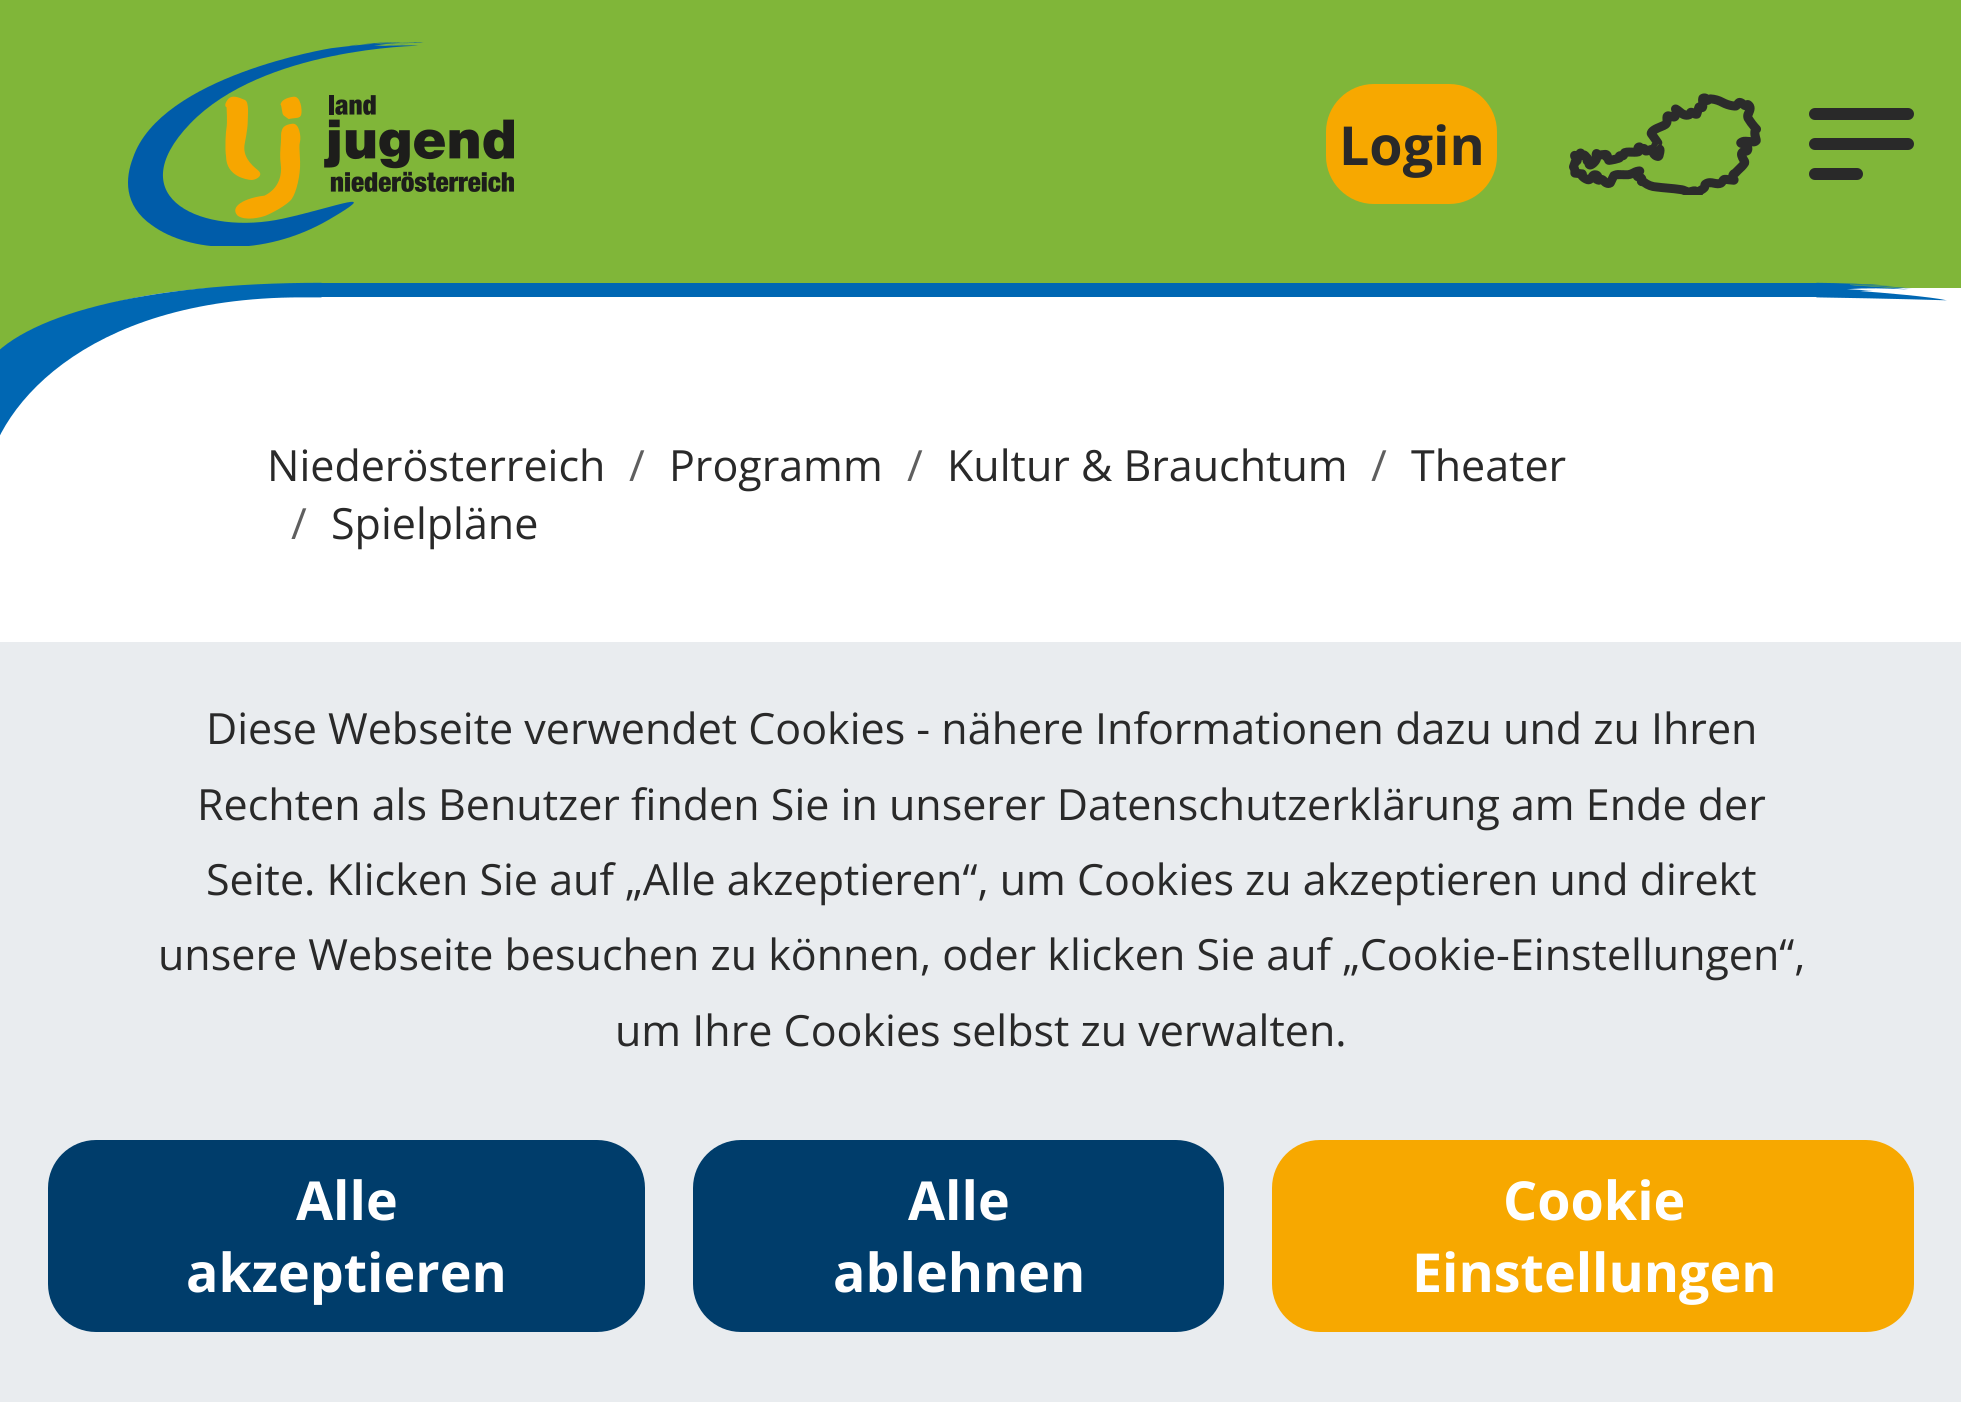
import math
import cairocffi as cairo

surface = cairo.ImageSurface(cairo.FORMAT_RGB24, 1961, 1402)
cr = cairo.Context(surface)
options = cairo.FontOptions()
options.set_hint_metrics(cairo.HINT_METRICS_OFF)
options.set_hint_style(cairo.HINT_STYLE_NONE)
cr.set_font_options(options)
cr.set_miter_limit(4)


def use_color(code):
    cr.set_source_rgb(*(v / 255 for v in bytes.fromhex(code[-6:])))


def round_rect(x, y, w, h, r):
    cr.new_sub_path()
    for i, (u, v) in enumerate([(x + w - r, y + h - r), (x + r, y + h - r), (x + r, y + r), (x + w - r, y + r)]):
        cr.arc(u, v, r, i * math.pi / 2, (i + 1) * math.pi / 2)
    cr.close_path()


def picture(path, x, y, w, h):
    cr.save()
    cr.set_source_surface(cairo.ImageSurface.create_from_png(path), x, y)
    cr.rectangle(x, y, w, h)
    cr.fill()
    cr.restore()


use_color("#ffffff")
cr.paint()
use_color("#80b639")
cr.rectangle(0, 0, 1961, 288)
cr.fill()
picture("img1.png", 128, 42, 386, 204)
use_color("#f7a800")
round_rect(1326, 84, 171, 120, 48)
cr.fill()
cr.select_font_face("Open Sans", cairo.FONT_SLANT_NORMAL, cairo.FONT_WEIGHT_BOLD)
cr.set_font_size(53.75)
use_color("#292929")
cr.move_to(1339, 165)
cr.show_text("Login")
picture("img2.png", 1569, 93, 192, 102)
round_rect(1809, 108, 105, 12, 6)
cr.fill()
round_rect(1809, 138, 105, 12, 6)
cr.fill()
round_rect(1809, 168, 54, 12, 6)
cr.fill()
picture("img3.png", 0, 282, 1947, 154)
cr.select_font_face("Open Sans")
cr.set_font_size(43)
cr.move_to(267, 481)
cr.show_text("Niederösterreich")
use_color("#5f5f5f")
cr.move_to(629, 481)
cr.show_text("/")
use_color("#292929")
cr.move_to(669, 481)
cr.show_text("Programm")
use_color("#5f5f5f")
cr.move_to(907, 481)
cr.show_text("/")
use_color("#292929")
cr.move_to(947, 481)
cr.show_text("Kultur & Brauchtum")
use_color("#5f5f5f")
cr.move_to(1371, 481)
cr.show_text("/")
use_color("#292929")
cr.move_to(1411, 481)
cr.show_text("Theater")
use_color("#5f5f5f")
cr.move_to(291, 539)
cr.show_text("/")
use_color("#292929")
cr.move_to(331, 539)
cr.show_text("Spielpläne")
use_color("#e9ecef")
cr.rectangle(0, 642, 1961, 760)
cr.fill()
use_color("#292929")
cr.move_to(206, 744)
cr.show_text("Diese Webseite verwendet Cookies - nähere Informationen dazu und zu Ihren")
cr.move_to(197, 820)
cr.show_text("Rechten als Benutzer finden Sie in unserer Datenschutzerklärung am Ende der")
cr.move_to(206, 895)
cr.show_text("Seite. Klicken Sie auf „Alle akzeptieren“, um Cookies zu akzeptieren und direkt")
cr.move_to(158, 970)
cr.show_text("unsere Webseite besuchen zu können, oder klicken Sie auf „Cookie-Einstellungen“,")
cr.move_to(615, 1046)
cr.show_text("um Ihre Cookies selbst zu verwalten.")
use_color("#003d6b")
round_rect(48, 1140, 597, 192, 48)
cr.fill()
cr.select_font_face("Open Sans", cairo.FONT_SLANT_NORMAL, cairo.FONT_WEIGHT_BOLD)
cr.set_font_size(53.75)
use_color("#ffffff")
cr.move_to(296, 1220)
cr.show_text("Alle")
cr.move_to(186, 1292)
cr.show_text("akzeptieren")
use_color("#003d6b")
round_rect(693, 1140, 531, 192, 48)
cr.fill()
use_color("#ffffff")
cr.move_to(908, 1220)
cr.show_text("Alle")
cr.move_to(833, 1292)
cr.show_text("ablehnen")
use_color("#f7a800")
round_rect(1272, 1140, 642, 192, 48)
cr.fill()
use_color("#ffffff")
cr.move_to(1503, 1220)
cr.show_text("Cookie")
cr.move_to(1412, 1292)
cr.show_text("Einstellungen")
surface.write_to_png("result.png")
